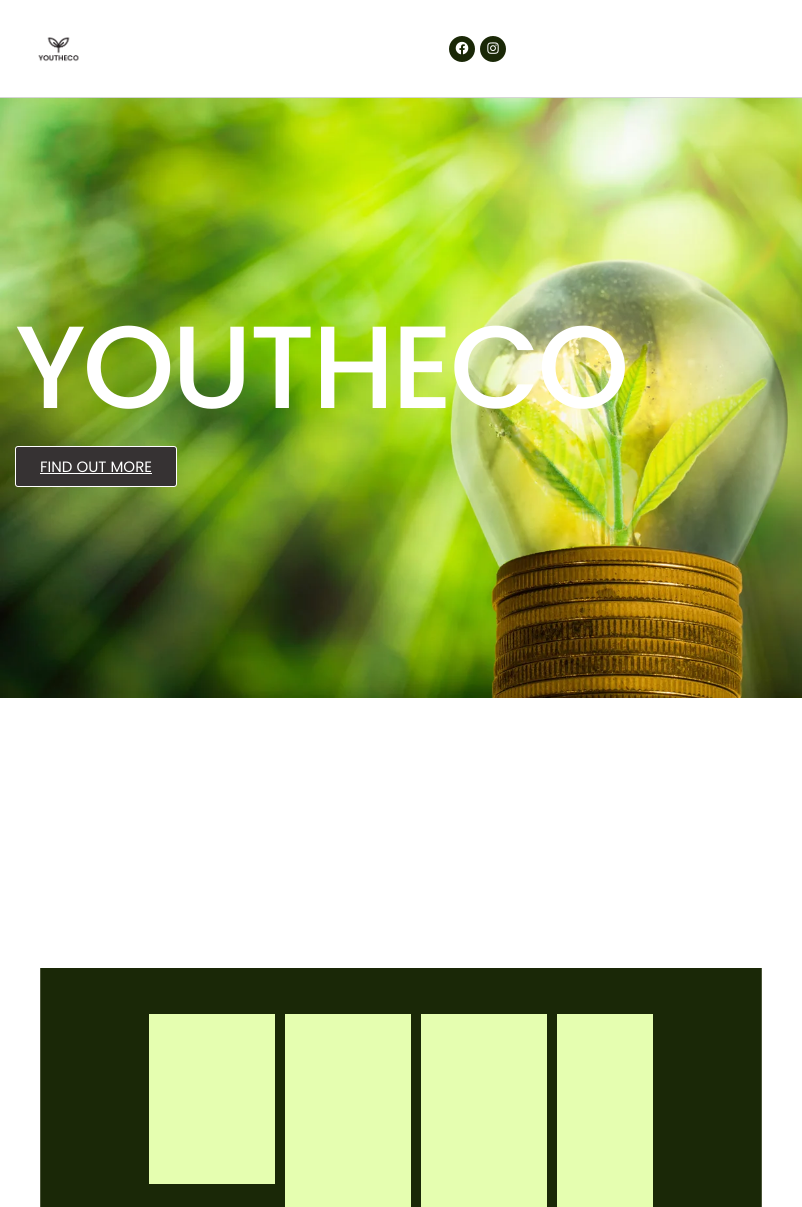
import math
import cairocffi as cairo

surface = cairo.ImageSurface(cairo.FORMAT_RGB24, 802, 1207)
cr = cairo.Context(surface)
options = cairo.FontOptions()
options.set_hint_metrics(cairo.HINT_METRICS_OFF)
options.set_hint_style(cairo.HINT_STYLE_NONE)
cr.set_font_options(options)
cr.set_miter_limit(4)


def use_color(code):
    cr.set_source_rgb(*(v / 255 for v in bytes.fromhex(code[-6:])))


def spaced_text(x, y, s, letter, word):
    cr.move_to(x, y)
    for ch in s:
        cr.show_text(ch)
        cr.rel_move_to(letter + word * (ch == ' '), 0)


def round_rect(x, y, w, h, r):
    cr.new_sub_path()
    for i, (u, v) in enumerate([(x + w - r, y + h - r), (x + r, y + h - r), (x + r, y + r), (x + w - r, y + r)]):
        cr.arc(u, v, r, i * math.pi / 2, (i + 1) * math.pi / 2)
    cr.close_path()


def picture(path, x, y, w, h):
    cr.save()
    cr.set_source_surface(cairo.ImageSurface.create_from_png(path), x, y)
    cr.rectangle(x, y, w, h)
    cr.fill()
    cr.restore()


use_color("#ffffff")
cr.paint()
use_color("#d6d6d6")
cr.rectangle(0, 97, 802, 1)
cr.fill()
picture("img1.png", 38, 37, 41, 25)
use_color("#1a2807")
cr.arc(462, 49, 13, 0, 2 * math.pi)
cr.fill()
picture("img2.png", 455, 41, 14, 14)
cr.arc(493, 49, 13, 0, 2 * math.pi)
cr.fill()
picture("img3.png", 487, 42, 12, 12)
picture("img4.png", 0, 98, 802, 600)
cr.select_font_face("Poppins Medium")
cr.set_font_size(117)
use_color("#ffffff")
spaced_text(15, 408, "YOUTHECO", -3, 0)
use_color("#363233")
round_rect(15.5, 446.5, 161, 40, 2.5)
cr.fill_preserve()
use_color("#ffffff")
cr.set_line_width(1)
cr.stroke()
cr.select_font_face("Poppins")
cr.set_font_size(15)
cr.move_to(40, 472)
cr.show_text("FIND OUT MORE")
cr.rectangle(40, 473, 112, 1)
cr.fill()
use_color("#1a2807")
cr.rectangle(41, 968, 720, 239)
cr.fill()
use_color("#4c563a")
cr.rectangle(761, 968, 1, 239)
cr.fill()
cr.rectangle(40, 968, 1, 239)
cr.fill()
use_color("#e5feb0")
cr.rectangle(149, 1014, 126, 170)
cr.fill()
cr.rectangle(285, 1014, 126, 193)
cr.fill()
cr.rectangle(421, 1014, 126, 193)
cr.fill()
cr.rectangle(557, 1014, 96, 193)
cr.fill()
surface.write_to_png("result.png")
